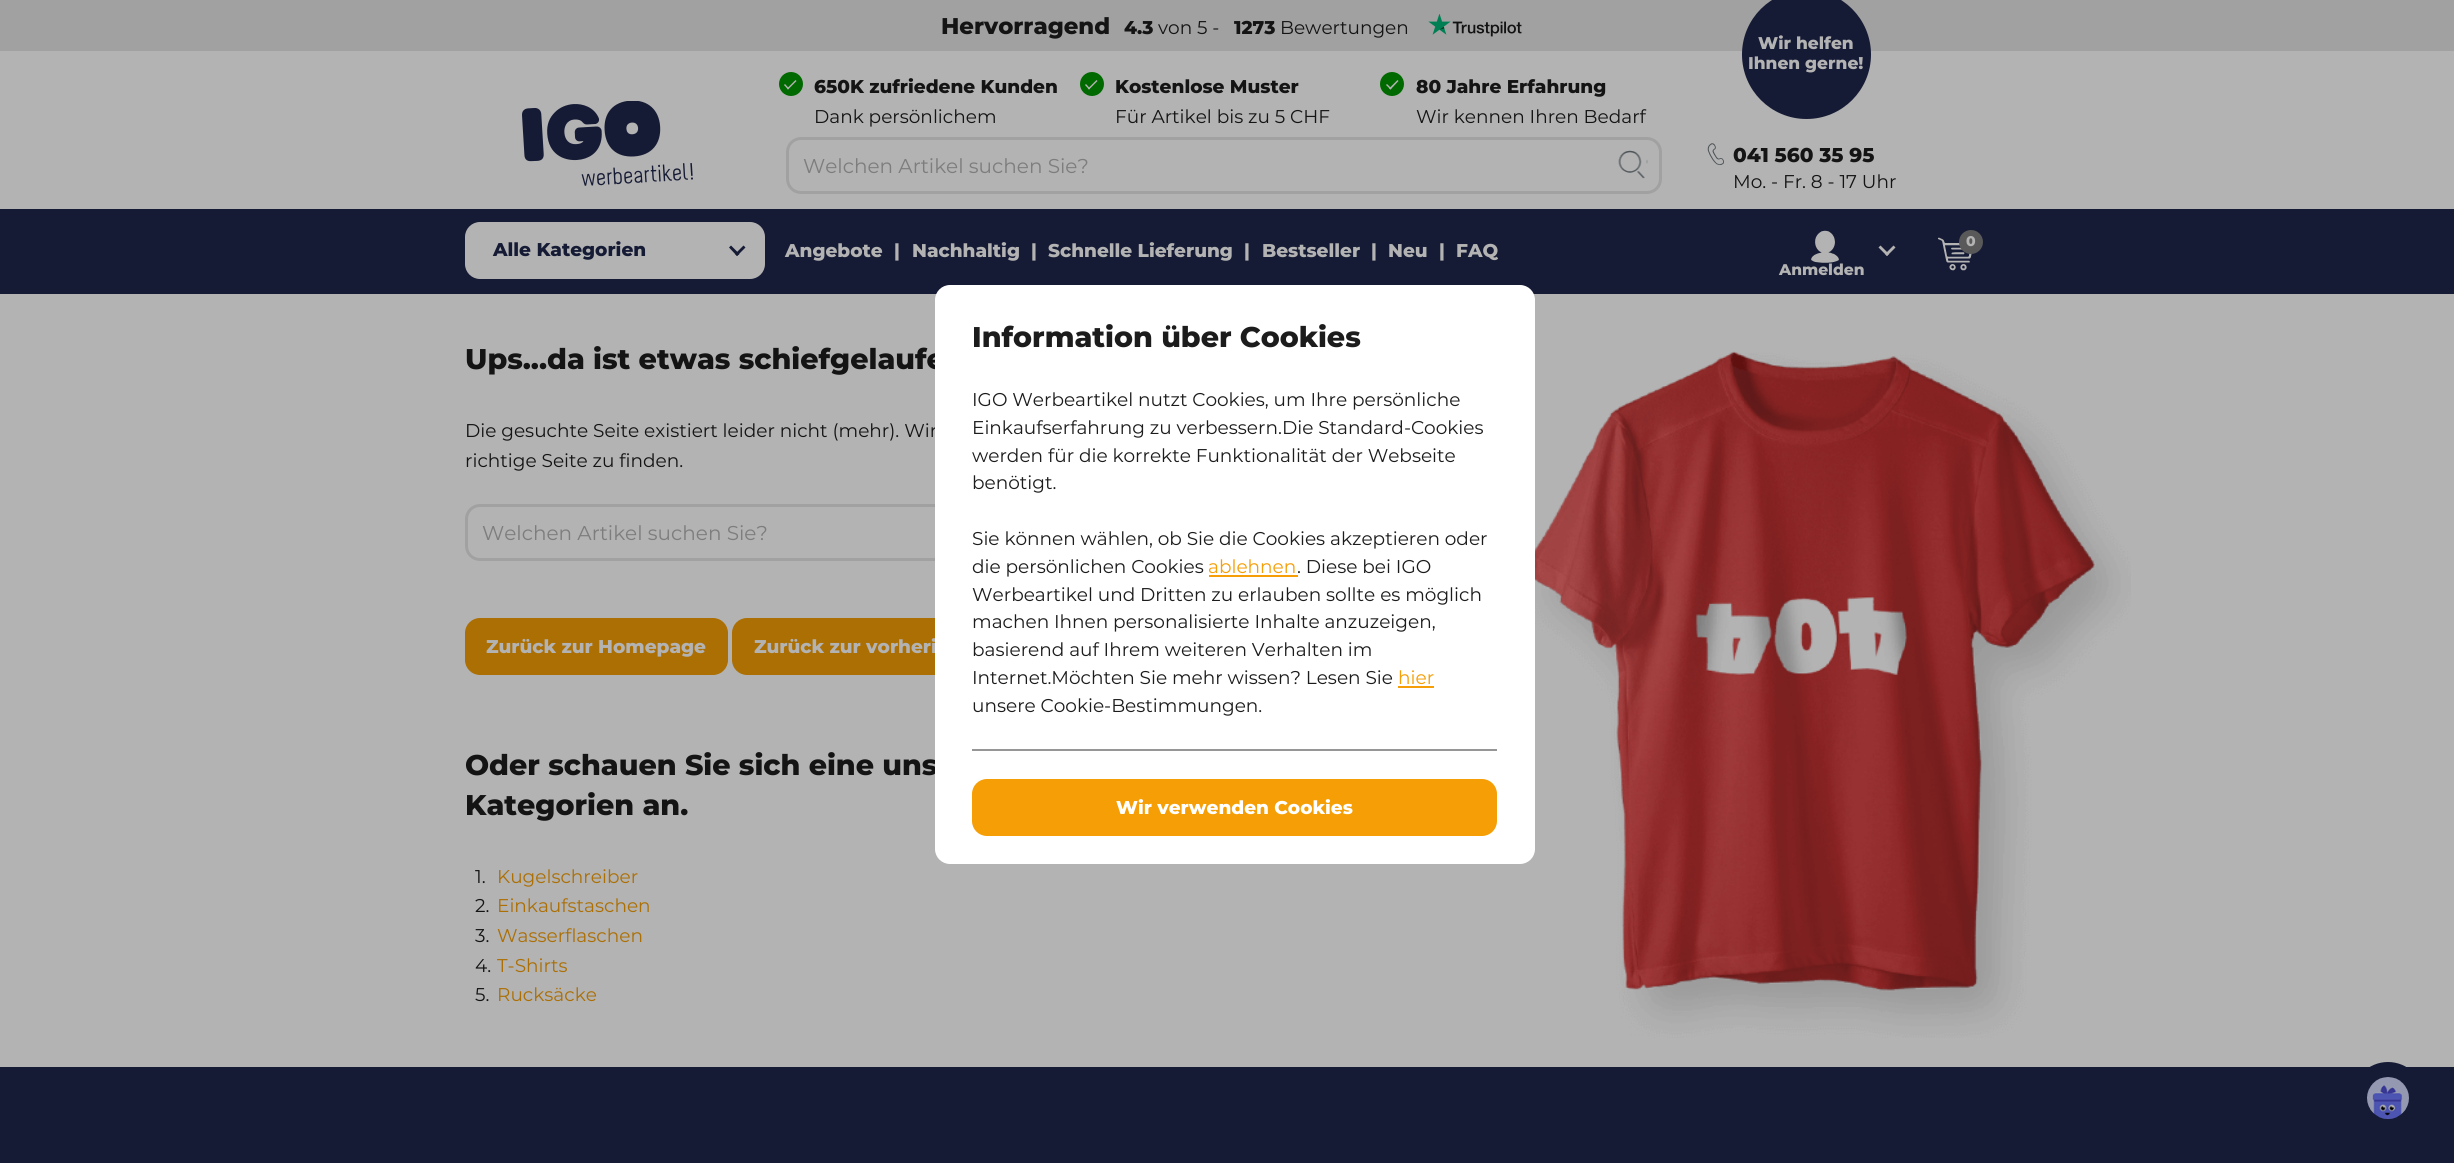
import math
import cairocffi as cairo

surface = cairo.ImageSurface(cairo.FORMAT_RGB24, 2454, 1163)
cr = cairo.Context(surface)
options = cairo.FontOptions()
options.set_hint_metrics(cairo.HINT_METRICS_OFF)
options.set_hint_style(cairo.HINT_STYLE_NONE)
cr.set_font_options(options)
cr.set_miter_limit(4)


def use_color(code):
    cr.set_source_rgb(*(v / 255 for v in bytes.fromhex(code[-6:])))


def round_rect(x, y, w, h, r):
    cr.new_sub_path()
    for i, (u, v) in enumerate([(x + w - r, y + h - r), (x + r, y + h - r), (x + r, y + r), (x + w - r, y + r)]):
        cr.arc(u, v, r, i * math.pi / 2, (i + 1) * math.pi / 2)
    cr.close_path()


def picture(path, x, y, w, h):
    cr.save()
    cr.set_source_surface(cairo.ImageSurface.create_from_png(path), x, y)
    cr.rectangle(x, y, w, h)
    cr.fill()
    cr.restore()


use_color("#b3b3b3")
cr.paint()
use_color("#a1a1a1")
cr.rectangle(0, 0, 2454, 51)
cr.fill()
cr.select_font_face("Montserrat ExtraBold")
cr.set_font_size(22.75)
use_color("#141414")
cr.move_to(941, 34)
cr.show_text("Hervorragend")
cr.set_font_size(18.5)
cr.move_to(1124, 34)
cr.show_text("4.3")
cr.select_font_face("Montserrat")
cr.move_to(1158, 34)
cr.show_text("von 5 -")
cr.select_font_face("Montserrat ExtraBold")
cr.move_to(1234, 34)
cr.show_text("1273")
cr.select_font_face("Montserrat")
cr.move_to(1280, 34)
cr.show_text("Bewertungen")
picture("img1.png", 1428, 14, 94, 23)
round_rect(787.5, 138.5, 873, 54, 13.5)
use_color("#a1a1a1")
cr.set_line_width(3)
cr.stroke()
cr.set_font_size(20)
use_color("#7d7d7d")
cr.move_to(803, 173)
cr.show_text("Welchen Artikel suchen Sie?")
picture("img2.png", 1618, 150, 30, 29)
use_color("#161b35")
cr.arc(1806.5, 54.5, 64.5, 0, 2 * math.pi)
cr.fill()
cr.select_font_face("Montserrat ExtraBold")
cr.set_font_size(17)
use_color("#b3b3b3")
cr.move_to(1758, 49)
cr.show_text("Wir helfen")
cr.move_to(1748, 69)
cr.show_text("Ihnen gerne!")
picture("img3.png", 1707, 143, 17, 22)
cr.set_font_size(20)
use_color("#141414")
cr.move_to(1733, 162)
cr.show_text("041 560 35 95")
cr.select_font_face("Montserrat")
cr.set_font_size(18.5)
cr.move_to(1733, 188)
cr.show_text("Mo. - Fr. 8 - 17 Uhr")
use_color("#161b35")
cr.rectangle(0, 209, 2454, 85)
cr.fill()
use_color("#b3b3b3")
round_rect(465, 222, 300, 57, 15)
cr.fill()
cr.select_font_face("Montserrat ExtraBold")
use_color("#161b35")
cr.move_to(493, 256)
cr.show_text("Alle Kategorien")
cr.new_path()
cr.move_to(735, 254)
cr.line_to(743.5, 245.5)
cr.line_to(745.5, 247.5)
cr.line_to(737, 256)
cr.close_path()
cr.fill()
cr.new_path()
cr.move_to(729, 247.5)
cr.line_to(731, 245.5)
cr.line_to(739.5, 254)
cr.line_to(737, 256)
cr.close_path()
cr.fill()
picture("img4.png", 1938, 237, 34, 34)
use_color("#595959")
cr.arc(1971, 242, 12, 0, 2 * math.pi)
cr.fill()
cr.set_font_size(14)
use_color("#b3b3b3")
cr.move_to(1966, 246)
cr.show_text("0")
picture("img5.png", 1811, 230, 28, 33)
cr.new_path()
cr.move_to(1885, 254)
cr.line_to(1893.5, 245.5)
cr.line_to(1895.5, 247.5)
cr.line_to(1887, 256)
cr.close_path()
cr.fill()
cr.new_path()
cr.move_to(1878.5, 247.5)
cr.line_to(1880.5, 245.5)
cr.line_to(1889, 254)
cr.line_to(1887, 256)
cr.close_path()
cr.fill()
cr.set_font_size(15.5)
cr.move_to(1779, 275)
cr.show_text("Anmelden")
picture("img6.png", 522, 101, 171, 85)
use_color("#006900")
cr.arc(791, 84, 12, 0, 2 * math.pi)
cr.fill()
cr.set_font_size(18.5)
use_color("#141414")
cr.move_to(814, 93)
cr.show_text("650K zufriedene Kunden")
cr.select_font_face("Montserrat")
cr.move_to(814, 123)
cr.show_text("Dank persönlichem")
use_color("#b3b3b3")
cr.new_path()
cr.move_to(795.5, 80)
cr.line_to(796.5, 81)
cr.line_to(788, 89.5)
cr.line_to(787, 88.5)
cr.close_path()
cr.fill()
cr.new_path()
cr.move_to(785, 84)
cr.line_to(789, 88.5)
cr.line_to(788, 89.5)
cr.line_to(784, 85)
cr.close_path()
cr.fill()
use_color("#006900")
cr.arc(1092, 84, 12, 0, 2 * math.pi)
cr.fill()
cr.select_font_face("Montserrat ExtraBold")
use_color("#141414")
cr.move_to(1115, 93)
cr.show_text("Kostenlose Muster")
cr.select_font_face("Montserrat")
cr.move_to(1115, 123)
cr.show_text("Für Artikel bis zu 5 CHF")
use_color("#b3b3b3")
cr.new_path()
cr.move_to(1096.5, 80)
cr.line_to(1097.5, 81)
cr.line_to(1089, 89.5)
cr.line_to(1088, 88.5)
cr.close_path()
cr.fill()
cr.new_path()
cr.move_to(1086, 84)
cr.line_to(1090, 88.5)
cr.line_to(1089, 89.5)
cr.line_to(1085, 85)
cr.close_path()
cr.fill()
use_color("#006900")
cr.arc(1392, 84, 12, 0, 2 * math.pi)
cr.fill()
cr.select_font_face("Montserrat ExtraBold")
use_color("#141414")
cr.move_to(1416, 93)
cr.show_text("80 Jahre Erfahrung")
cr.select_font_face("Montserrat")
cr.move_to(1416, 123)
cr.show_text("Wir kennen Ihren Bedarf")
use_color("#b3b3b3")
cr.new_path()
cr.move_to(1397.5, 80)
cr.line_to(1398.5, 81)
cr.line_to(1390.5, 89.5)
cr.line_to(1389, 88.5)
cr.close_path()
cr.fill()
cr.new_path()
cr.move_to(1387, 84)
cr.line_to(1391.5, 88.5)
cr.line_to(1390.5, 89.5)
cr.line_to(1386, 85)
cr.close_path()
cr.fill()
cr.select_font_face("Montserrat ExtraBold")
cr.move_to(785, 257)
cr.show_text("Angebote")
cr.move_to(894, 257)
cr.show_text("|")
cr.move_to(912, 257)
cr.show_text("Nachhaltig")
cr.move_to(1031, 257)
cr.show_text("|")
cr.move_to(1048, 257)
cr.show_text("Schnelle Lieferung")
cr.move_to(1244, 257)
cr.show_text("|")
cr.move_to(1262, 257)
cr.show_text("Bestseller")
cr.move_to(1371, 257)
cr.show_text("|")
cr.move_to(1388, 257)
cr.show_text("Neu")
cr.move_to(1439, 257)
cr.show_text("|")
cr.move_to(1456, 257)
cr.show_text("FAQ")
cr.set_font_size(28.5)
use_color("#141414")
cr.move_to(465, 369)
cr.show_text("Ups...da ist etwas schiefgelaufe")
cr.select_font_face("Montserrat")
cr.set_font_size(18.5)
cr.move_to(465, 437)
cr.show_text("Die gesuchte Seite existiert leider nicht (mehr). Wir")
cr.move_to(465, 467)
cr.show_text("richtige Seite zu finden.")
round_rect(466.5, 505.5, 752, 54, 13.5)
use_color("#a1a1a1")
cr.stroke()
cr.set_font_size(20)
use_color("#7d7d7d")
cr.move_to(482, 540)
cr.show_text("Welchen Artikel suchen Sie?")
use_color("#ac6f04")
round_rect(465, 618, 263, 57, 15)
cr.fill()
cr.select_font_face("Montserrat ExtraBold")
cr.set_font_size(18.5)
use_color("#b3b3b3")
cr.move_to(486, 653)
cr.show_text("Zurück zur Homepage")
use_color("#ac6f04")
round_rect(732, 618, 320, 57, 15)
cr.fill()
use_color("#b3b3b3")
cr.move_to(754, 653)
cr.show_text("Zurück zur vorheri")
cr.set_font_size(28.5)
use_color("#141414")
cr.move_to(465, 775)
cr.show_text("Oder schauen Sie sich eine uns")
cr.move_to(465, 815)
cr.show_text("Kategorien an.")
cr.select_font_face("Montserrat")
cr.set_font_size(18.5)
cr.move_to(475, 883)
cr.show_text("1.")
use_color("#ac6f04")
cr.move_to(497, 883)
cr.show_text("Kugelschreiber")
use_color("#141414")
cr.move_to(475, 912)
cr.show_text("2.")
use_color("#ac6f04")
cr.move_to(497, 912)
cr.show_text("Einkaufstaschen")
use_color("#141414")
cr.move_to(475, 942)
cr.show_text("3.")
use_color("#ac6f04")
cr.move_to(497, 942)
cr.show_text("Wasserflaschen")
use_color("#141414")
cr.move_to(475, 972)
cr.show_text("4.")
use_color("#ac6f04")
cr.move_to(497, 972)
cr.show_text("T-Shirts")
use_color("#141414")
cr.move_to(475, 1001)
cr.show_text("5.")
use_color("#ac6f04")
cr.move_to(497, 1001)
cr.show_text("Rucksäcke")
picture("img7.png", 1535, 351, 596, 687)
use_color("#ffffff")
round_rect(935, 285, 600, 579, 15)
cr.fill()
use_color("#969696")
cr.rectangle(972, 749, 525, 2)
cr.fill()
cr.select_font_face("Montserrat ExtraBold")
cr.set_font_size(28.5)
use_color("#1c1c1c")
cr.move_to(972, 347)
cr.show_text("Information über Cookies")
cr.select_font_face("Montserrat")
cr.set_font_size(18.5)
cr.move_to(972, 406)
cr.show_text("IGO Werbeartikel nutzt Cookies, um Ihre persönliche")
cr.move_to(972, 434)
cr.show_text("Einkaufserfahrung zu verbessern.Die Standard-Cookies")
cr.move_to(972, 462)
cr.show_text("werden für die korrekte Funktionalität der Webseite")
cr.move_to(972, 489)
cr.show_text("benötigt.")
cr.move_to(972, 545)
cr.show_text("Sie können wählen, ob Sie die Cookies akzeptieren oder")
cr.move_to(972, 573)
cr.show_text("die persönlichen Cookies")
use_color("#f59e05")
cr.move_to(1208, 573)
cr.show_text("ablehnen")
cr.rectangle(1209, 575, 89, 2)
cr.fill()
use_color("#1c1c1c")
cr.move_to(1297, 573)
cr.show_text(". Diese bei IGO")
cr.move_to(972, 601)
cr.show_text("Werbeartikel und Dritten zu erlauben sollte es möglich")
cr.move_to(972, 628)
cr.show_text("machen Ihnen personalisierte Inhalte anzuzeigen,")
cr.move_to(972, 656)
cr.show_text("basierend auf Ihrem weiteren Verhalten im")
cr.move_to(972, 684)
cr.show_text("Internet.Möchten Sie mehr wissen? Lesen Sie")
use_color("#f59e05")
cr.move_to(1398, 684)
cr.show_text("hier")
cr.rectangle(1398, 686, 36, 2)
cr.fill()
use_color("#1c1c1c")
cr.move_to(972, 712)
cr.show_text("unsere Cookie-Bestimmungen.")
use_color("#f59e05")
round_rect(972, 779, 525, 57, 15)
cr.fill()
cr.select_font_face("Montserrat ExtraBold")
use_color("#ffffff")
cr.move_to(1116, 814)
cr.show_text("Wir verwenden Cookies")
use_color("#161b35")
cr.rectangle(0, 1067, 2454, 96)
cr.fill()
cr.arc(2388, 1098, 36, 0, 2 * math.pi)
cr.fill()
picture("img8.png", 2367, 1077, 42, 42)
surface.write_to_png("result.png")
